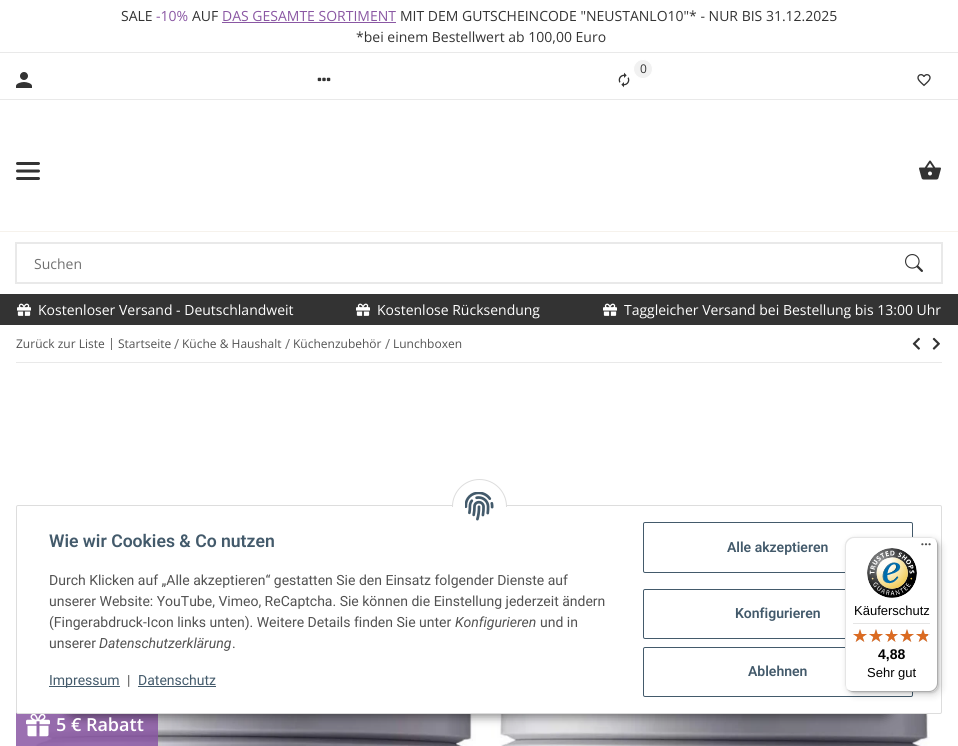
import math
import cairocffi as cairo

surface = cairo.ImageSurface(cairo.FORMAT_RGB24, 958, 746)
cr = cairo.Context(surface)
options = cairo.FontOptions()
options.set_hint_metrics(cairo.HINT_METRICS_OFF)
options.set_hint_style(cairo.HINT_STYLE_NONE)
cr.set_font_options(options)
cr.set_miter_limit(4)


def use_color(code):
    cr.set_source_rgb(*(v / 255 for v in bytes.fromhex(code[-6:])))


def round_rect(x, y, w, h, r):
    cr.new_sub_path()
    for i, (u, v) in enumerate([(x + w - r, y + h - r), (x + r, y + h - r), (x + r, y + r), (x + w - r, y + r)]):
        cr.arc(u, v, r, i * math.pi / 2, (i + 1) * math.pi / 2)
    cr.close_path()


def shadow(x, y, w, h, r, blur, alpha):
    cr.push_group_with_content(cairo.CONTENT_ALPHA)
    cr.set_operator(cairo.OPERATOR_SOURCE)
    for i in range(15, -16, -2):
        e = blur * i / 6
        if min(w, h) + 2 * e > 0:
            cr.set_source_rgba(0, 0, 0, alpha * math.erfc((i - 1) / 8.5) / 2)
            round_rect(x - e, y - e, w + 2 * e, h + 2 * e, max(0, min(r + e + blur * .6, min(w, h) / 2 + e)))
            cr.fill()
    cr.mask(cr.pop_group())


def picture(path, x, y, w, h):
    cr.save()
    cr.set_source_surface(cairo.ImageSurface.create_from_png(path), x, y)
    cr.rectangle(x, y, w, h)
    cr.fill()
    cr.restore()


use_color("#ffffff")
cr.paint()
cr.select_font_face("Open Sans")
cr.set_font_size(14)
use_color("#333333")
cr.move_to(121, 21)
cr.show_text("SALE")
use_color("#8a57a3")
cr.move_to(156, 21)
cr.show_text("-10%")
use_color("#333333")
cr.move_to(192, 21)
cr.show_text("AUF")
use_color("#8a57a3")
cr.move_to(222, 21)
cr.show_text("DAS GESAMTE SORTIMENT")
cr.rectangle(222, 22, 174, 1)
cr.fill()
use_color("#333333")
cr.move_to(400, 21)
cr.show_text("MIT DEM GUTSCHEINCODE \"NEUSTANLO10\"* - NUR BIS 31.12.2025")
cr.move_to(356, 42)
cr.show_text("*bei einem Bestellwert ab 100,00 Euro")
use_color("#e9e9e9")
cr.rectangle(0, 52, 958, 1)
cr.fill()
cr.rectangle(0, 99, 958, 1)
cr.fill()
use_color("#f1f1f1")
cr.arc(643, 69, 9.5, 0, 2 * math.pi)
cr.fill_preserve()
use_color("#ffffff")
cr.set_line_width(1)
cr.stroke()
cr.set_font_size(12)
use_color("#333333")
cr.move_to(640, 73)
cr.show_text("0")
picture("img1.png", 618, 72, 12, 16)
picture("img2.png", 16, 72, 16, 16)
picture("img3.png", 317, 77, 14, 5)
picture("img4.png", 917, 74, 14, 13)
use_color("#f6f2ec")
cr.rectangle(0, 231, 958, 1)
cr.fill()
picture("img5.png", 16, 162, 24, 18)
picture("img6.png", 919, 160, 22, 20)
cr.rectangle(16, 243, 926, 40)
use_color("#e9e9e9")
cr.set_line_width(2)
cr.stroke()
cr.set_font_size(14)
use_color("#707070")
cr.move_to(34, 269)
cr.show_text("Suchen")
picture("img7.png", 905, 254, 18, 18)
use_color("#333333")
cr.rectangle(0, 294, 958, 31)
cr.fill()
picture("img8.png", 17, 303, 14, 13)
use_color("#ffffff")
cr.move_to(38, 315)
cr.show_text("Kostenloser Versand - Deutschlandweit")
picture("img8.png", 356, 303, 14, 13)
cr.move_to(377, 315)
cr.show_text("Kostenlose Rücksendung")
picture("img8.png", 603, 303, 14, 13)
cr.move_to(624, 315)
cr.show_text("Taggleicher Versand bei Bestellung bis 13:00 Uhr")
cr.set_font_size(12)
use_color("#525252")
cr.move_to(16, 348)
cr.show_text("Zurück zur Liste")
use_color("#707070")
cr.rectangle(111, 338, 1, 12)
cr.fill()
use_color("#525252")
cr.move_to(118, 348)
cr.show_text("Startseite")
cr.set_font_size(14)
use_color("#707070")
cr.move_to(174, 349)
cr.show_text("/")
cr.set_font_size(12)
use_color("#525252")
cr.move_to(182, 348)
cr.show_text("Küche & Haushalt")
cr.set_font_size(14)
use_color("#707070")
cr.move_to(285, 349)
cr.show_text("/")
cr.set_font_size(12)
use_color("#525252")
cr.move_to(293, 348)
cr.show_text("Küchenzubehör")
cr.set_font_size(14)
use_color("#707070")
cr.move_to(385, 349)
cr.show_text("/")
cr.set_font_size(12)
use_color("#525252")
cr.move_to(393, 348)
cr.show_text("Lunchboxen")
picture("img9.png", 912, 337, 8, 13)
picture("img10.png", 932, 337, 8, 13)
use_color("#e9e9e9")
cr.rectangle(16, 362, 926, 1)
cr.fill()
picture("img11.png", 32, 714, 898, 32)
cr.set_source_rgba(0.541, 0.341, 0.639, 0.85)
cr.rectangle(16, 712, 142, 34)
cr.fill()
picture("img20.png", 26, 714, 24, 23)
use_color("#000000")
shadow(63, 685, 832, 32, 16, 5, 0.45)
use_color("#ffffff")
round_rect(16.5, 505.5, 925, 208, 1.5)
cr.fill_preserve()
use_color("#dddddd")
cr.set_line_width(1)
cr.stroke()
use_color("#ffffff")
cr.arc(479.5, 506.5, 27, 0, 2 * math.pi)
cr.fill_preserve()
use_color("#dddddd")
cr.stroke()
use_color("#ffffff")
cr.rectangle(452, 507, 55, 27)
cr.fill()
picture("img12.png", 465, 492, 29, 29)
cr.select_font_face("Roboto SemiBold")
cr.set_font_size(17.6)
use_color("#435a6b")
cr.move_to(49, 547)
cr.show_text("Wie wir Cookies & Co nutzen")
cr.select_font_face("Roboto")
cr.set_font_size(14)
use_color("#525252")
cr.move_to(49, 585)
cr.show_text("Durch Klicken auf „Alle akzeptieren“ gestatten Sie den Einsatz folgender Dienste auf")
cr.move_to(49, 606)
cr.show_text("unserer Website: YouTube, Vimeo, ReCaptcha. Sie können die Einstellung jederzeit ändern")
cr.move_to(49, 627)
cr.show_text("(Fingerabdruck-Icon links unten). Weitere Details finden Sie unter")
cr.select_font_face("Roboto", cairo.FONT_SLANT_ITALIC)
cr.move_to(455, 627)
cr.show_text("Konfigurieren")
cr.select_font_face("Roboto")
cr.move_to(540, 627)
cr.show_text("und in")
cr.move_to(49, 648)
cr.show_text("unserer")
cr.select_font_face("Roboto", cairo.FONT_SLANT_ITALIC)
cr.move_to(99, 648)
cr.show_text("Datenschutzerklärung")
cr.select_font_face("Roboto")
cr.move_to(232, 648)
cr.show_text(".")
use_color("#435a6b")
cr.rectangle(49, 686, 71, 1)
cr.fill()
cr.move_to(49, 685)
cr.show_text("Impressum")
use_color("#525252")
cr.move_to(127, 685)
cr.show_text("|")
use_color("#435a6b")
cr.move_to(138, 685)
cr.show_text("Datenschutz")
cr.rectangle(138, 686, 78, 1)
cr.fill()
round_rect(643.5, 522.5, 269, 50, 1.5)
cr.stroke()
cr.select_font_face("Roboto SemiBold")
cr.move_to(727, 552)
cr.show_text("Alle akzeptieren")
round_rect(643.5, 589.5, 269, 49, 1.5)
cr.stroke()
cr.move_to(735, 618)
cr.show_text("Konfigurieren")
round_rect(643.5, 647.5, 269, 49, 1.5)
cr.stroke()
cr.move_to(748, 676)
cr.show_text("Ablehnen")
use_color("#000000")
shadow(848, 540, 93, 155, 8, 4, 0.15)
shadow(846, 538, 93, 155, 8, 1, 0.15)
use_color("#ffffff")
round_rect(845, 537, 93, 155, 8)
cr.fill()
use_color("#e5e5e5")
cr.new_path()
cr.move_to(854, 538)
cr.line_to(931, 538)
cr.curve_to(933, 538, 935, 539, 937, 541)
cr.curve_to(935, 539, 933, 537, 930, 537)
cr.line_to(853, 537)
cr.curve_to(849, 537, 845, 541, 845, 545)
cr.line_to(845, 684)
cr.curve_to(845, 687, 847, 689, 849, 691)
cr.curve_to(847, 689, 846, 687, 846, 685)
cr.line_to(846, 546)
cr.curve_to(846, 542, 850, 538, 854, 538)
cr.close_path()
cr.fill()
use_color("#cccccc")
cr.new_path()
cr.move_to(846, 688)
cr.curve_to(848, 690, 850, 692, 853, 692)
cr.line_to(930, 692)
cr.curve_to(934, 692, 938, 688, 938, 684)
cr.line_to(938, 545)
cr.curve_to(938, 542, 936, 540, 934, 538)
cr.curve_to(936, 540, 937, 542, 937, 544)
cr.line_to(937, 683)
cr.curve_to(937, 687, 933, 691, 929, 691)
cr.line_to(852, 691)
cr.curve_to(850, 691, 848, 690, 846, 688)
cr.close_path()
cr.fill()
cr.set_source_rgba(0.196, 0.196, 0.196, 0.2)
cr.new_path()
cr.move_to(847, 689)
cr.curve_to(848, 691, 851, 692, 853, 692)
cr.line_to(930, 692)
cr.curve_to(934, 692, 938, 688, 938, 684)
cr.line_to(938, 545)
cr.curve_to(938, 543, 937, 540, 935, 539)
cr.curve_to(936, 540, 937, 542, 937, 544)
cr.line_to(937, 683)
cr.curve_to(937, 688, 934, 691, 929, 691)
cr.line_to(852, 691)
cr.curve_to(850, 691, 848, 690, 847, 689)
cr.close_path()
cr.fill()
picture("img13.png", 921, 543, 10, 3)
cr.set_source_rgba(1, 1, 1, 0.3)
cr.new_path()
cr.move_to(930, 692)
cr.curve_to(934.5, 692, 938, 688.5, 938, 684)
cr.curve_to(938, 688, 934, 692, 930, 692)
cr.close_path()
cr.fill()
picture("img14.png", 867, 548, 50, 50)
cr.select_font_face("Liberation Sans")
cr.set_font_size(13)
use_color("#000000")
cr.move_to(854, 615)
cr.show_text("Käuferschutz")
use_color("#e5e5e5")
cr.rectangle(853, 623, 77, 1)
cr.fill()
picture("img15.png", 853, 629, 14, 13)
picture("img15.png", 869, 629, 14, 13)
picture("img16.png", 885, 629, 13, 13)
picture("img15.png", 900, 629, 14, 13)
picture("img15.png", 916, 629, 14, 13)
picture("img17.png", 853, 629, 14, 13)
picture("img17.png", 869, 629, 14, 13)
picture("img18.png", 885, 629, 13, 13)
picture("img17.png", 900, 629, 14, 13)
picture("img19.png", 916, 629, 12, 13)
cr.select_font_face("Liberation Sans", cairo.FONT_SLANT_NORMAL, cairo.FONT_WEIGHT_BOLD)
cr.set_font_size(14)
use_color("#000000")
cr.move_to(878, 659)
cr.show_text("4,88")
cr.select_font_face("Liberation Sans")
cr.set_font_size(13)
cr.move_to(867, 677)
cr.show_text("Sehr gut")
cr.select_font_face("Open Sans SemiBold")
cr.set_font_size(18)
use_color("#ffffff")
cr.move_to(56, 731)
cr.show_text("5 € Rabatt")
surface.write_to_png("result.png")
